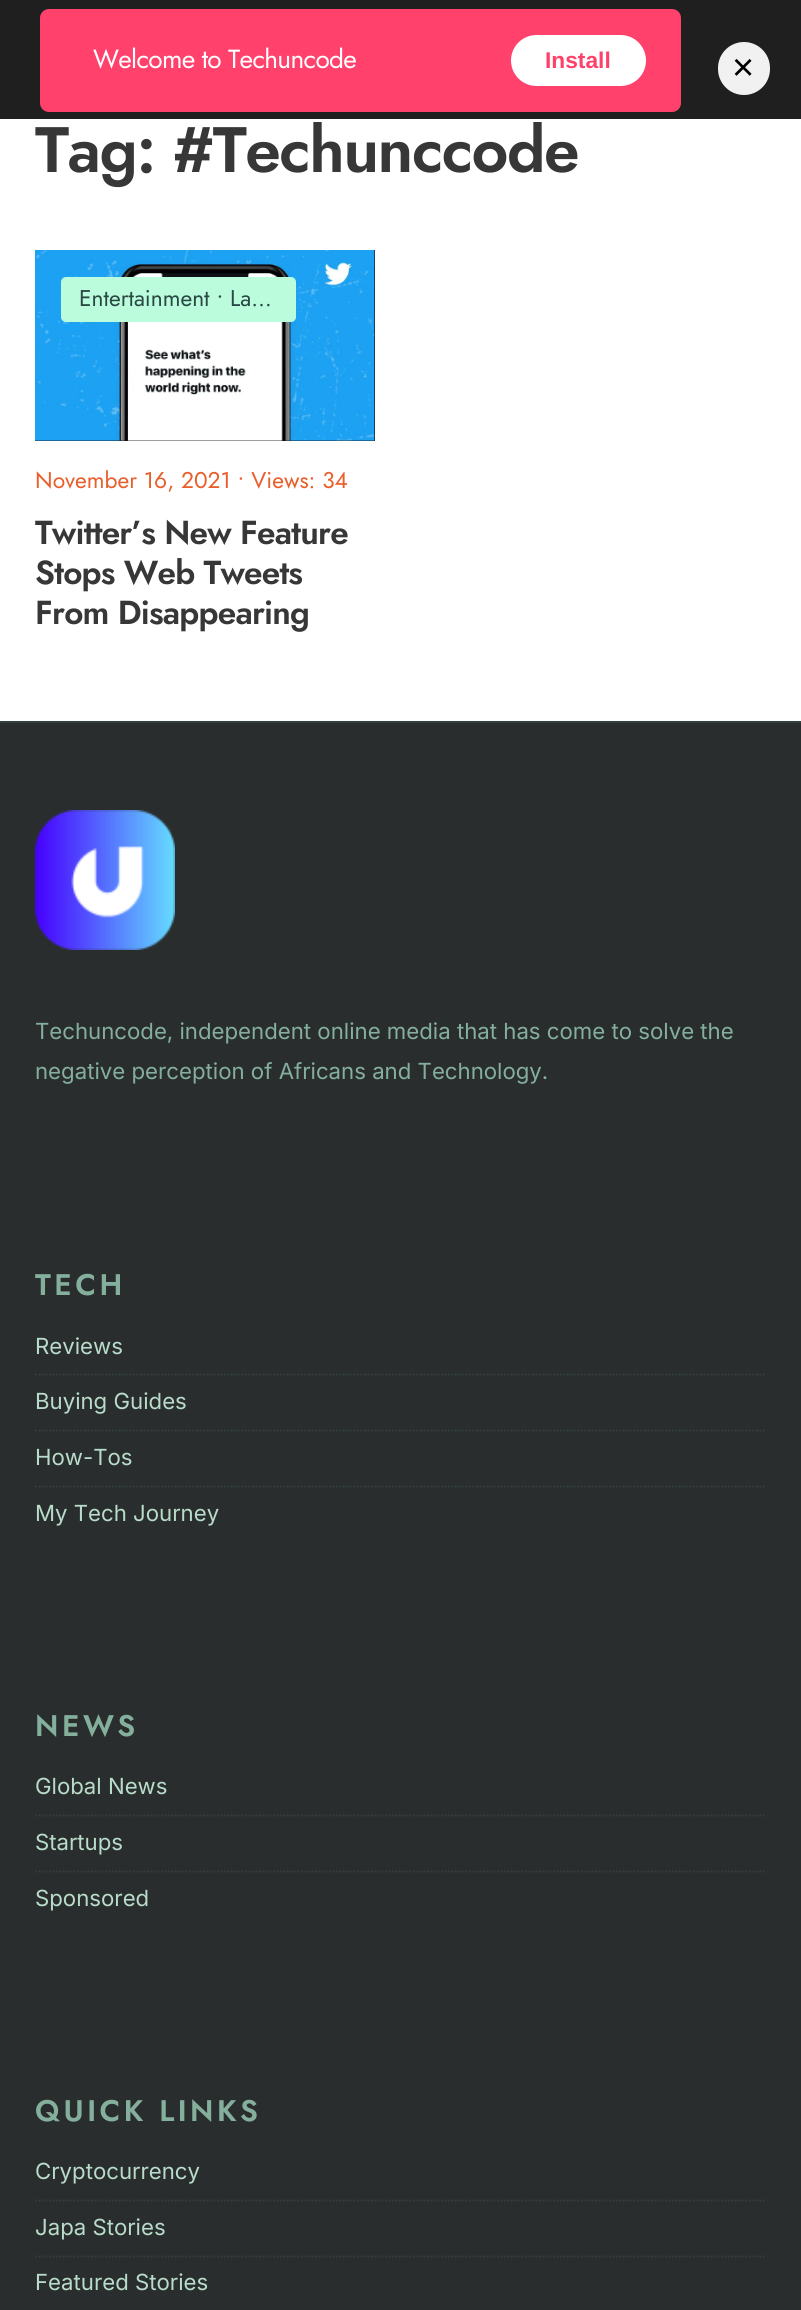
import math
import cairocffi as cairo

surface = cairo.ImageSurface(cairo.FORMAT_RGB24, 801, 2310)
cr = cairo.Context(surface)
options = cairo.FontOptions()
options.set_hint_metrics(cairo.HINT_METRICS_OFF)
options.set_hint_style(cairo.HINT_STYLE_NONE)
cr.set_font_options(options)
cr.set_miter_limit(4)


def use_color(code):
    cr.set_source_rgb(*(v / 255 for v in bytes.fromhex(code[-6:])))


def spaced_text(x, y, s, letter, word):
    cr.move_to(x, y)
    for ch in s:
        cr.show_text(ch)
        cr.rel_move_to(letter + word * (ch == ' '), 0)


def round_rect(x, y, w, h, r):
    cr.new_sub_path()
    for i, (u, v) in enumerate([(x + w - r, y + h - r), (x + r, y + h - r), (x + r, y + r), (x + w - r, y + r)]):
        cr.arc(u, v, r, i * math.pi / 2, (i + 1) * math.pi / 2)
    cr.close_path()


def picture(path, x, y, w, h):
    cr.save()
    cr.set_source_surface(cairo.ImageSurface.create_from_png(path), x, y)
    cr.rectangle(x, y, w, h)
    cr.fill()
    cr.restore()


use_color("#ffffff")
cr.paint()
use_color("#1f1f1f")
cr.rectangle(0, 0, 801, 119)
cr.fill()
use_color("#ff416c")
round_rect(40, 9, 641, 103, 9)
cr.fill()
cr.select_font_face("Jost")
cr.set_font_size(26.25)
use_color("#ffffff")
spaced_text(93, 68, "Welcome to Techuncode", -0.7, 0)
round_rect(511, 35, 135, 51, 25.5)
cr.fill()
cr.select_font_face("Liberation Sans", cairo.FONT_SLANT_NORMAL, cairo.FONT_WEIGHT_BOLD)
cr.set_font_size(22.75)
use_color("#ff416a")
cr.move_to(545, 68)
cr.show_text("Install")
use_color("#f1f1f1")
round_rect(718, 42, 52, 53, 26)
cr.fill()
cr.select_font_face("Liberation Sans")
cr.set_font_size(38)
use_color("#000000")
cr.move_to(732, 80)
cr.show_text("×")
cr.select_font_face("Jost SemiBold")
cr.set_font_size(64.1)
use_color("#373737")
spaced_text(35, 172, "Tag: #Techunccode", -1.5, 0)
use_color("#192126")
cr.rectangle(35, 250, 340, 191)
cr.fill()
picture("img1.png", 35, 250, 340, 191)
use_color("#bafcdc")
round_rect(61, 277, 235, 45, 5)
cr.fill()
cr.select_font_face("Jost")
cr.set_font_size(22.75)
use_color("#294743")
cr.move_to(79, 306)
cr.show_text("Entertainment • La…")
use_color("#e95e2a")
cr.move_to(35, 488)
cr.show_text("November 16, 2021 • Views: 34")
cr.select_font_face("Jost SemiBold")
cr.set_font_size(33.25)
use_color("#373737")
spaced_text(35, 544, "Twitter’s New Feature", -0.8, 0)
spaced_text(35, 584, "Stops Web Tweets", -0.8, 0)
spaced_text(35, 624, "From Disappearing", -0.8, 0)
use_color("#292d2d")
cr.rectangle(0, 723, 801, 1587)
cr.fill()
use_color("#343f3f")
cr.rectangle(0, 721, 801, 2)
cr.fill()
picture("img2.png", 35, 810, 140, 140)
cr.select_font_face("Inter")
cr.set_font_size(22.2)
use_color("#85af9d")
cr.move_to(35, 1039)
cr.show_text("Techuncode, independent online media that has come to solve the")
cr.move_to(35, 1079)
cr.show_text("negative perception of Africans and Technology.")
cr.select_font_face("Jost SemiBold")
cr.set_font_size(29.75)
spaced_text(35, 1295, "TECH", 3.5, 0)
cr.select_font_face("Inter")
cr.set_font_size(22.2)
use_color("#b8dbca")
cr.move_to(35, 1354)
cr.show_text("Reviews")
cr.new_path()
cr.move_to(35, 1374.5)
cr.line_to(766.5, 1374.5)
use_color("#343f3f")
cr.set_line_width(1.8)
cr.set_dash([1.75, 1.75])
cr.stroke()
use_color("#b8dbca")
cr.move_to(35, 1409)
cr.show_text("Buying Guides")
cr.new_path()
cr.move_to(35, 1430.5)
cr.line_to(766.5, 1430.5)
use_color("#343f3f")
cr.stroke()
use_color("#b8dbca")
cr.move_to(35, 1465)
cr.show_text("How-Tos")
cr.new_path()
cr.move_to(35, 1486.5)
cr.line_to(766.5, 1486.5)
use_color("#343f3f")
cr.stroke()
use_color("#b8dbca")
cr.move_to(35, 1521)
cr.show_text("My Tech Journey")
cr.select_font_face("Jost SemiBold")
cr.set_font_size(29.75)
use_color("#85af9d")
spaced_text(35, 1736, "NEWS", 3.5, 0)
cr.select_font_face("Inter")
cr.set_font_size(22.2)
use_color("#b8dbca")
cr.move_to(35, 1794)
cr.show_text("Global News")
cr.new_path()
cr.move_to(35, 1815.5)
cr.line_to(766.5, 1815.5)
use_color("#343f3f")
cr.stroke()
use_color("#b8dbca")
cr.move_to(35, 1850)
cr.show_text("Startups")
cr.new_path()
cr.move_to(35, 1871.5)
cr.line_to(766.5, 1871.5)
use_color("#343f3f")
cr.stroke()
use_color("#b8dbca")
cr.move_to(35, 1906)
cr.show_text("Sponsored")
cr.select_font_face("Jost SemiBold")
cr.set_font_size(29.75)
use_color("#85af9d")
spaced_text(35, 2121, "QUICK LINKS", 3.5, 0)
cr.select_font_face("Inter")
cr.set_font_size(22.2)
use_color("#b8dbca")
cr.move_to(35, 2179)
cr.show_text("Cryptocurrency")
cr.new_path()
cr.move_to(35, 2200.5)
cr.line_to(766.5, 2200.5)
use_color("#343f3f")
cr.stroke()
use_color("#b8dbca")
cr.move_to(35, 2235)
cr.show_text("Japa Stories")
cr.new_path()
cr.move_to(35, 2256.5)
cr.line_to(766.5, 2256.5)
use_color("#343f3f")
cr.stroke()
use_color("#b8dbca")
cr.move_to(35, 2290)
cr.show_text("Featured Stories")
surface.write_to_png("result.png")
